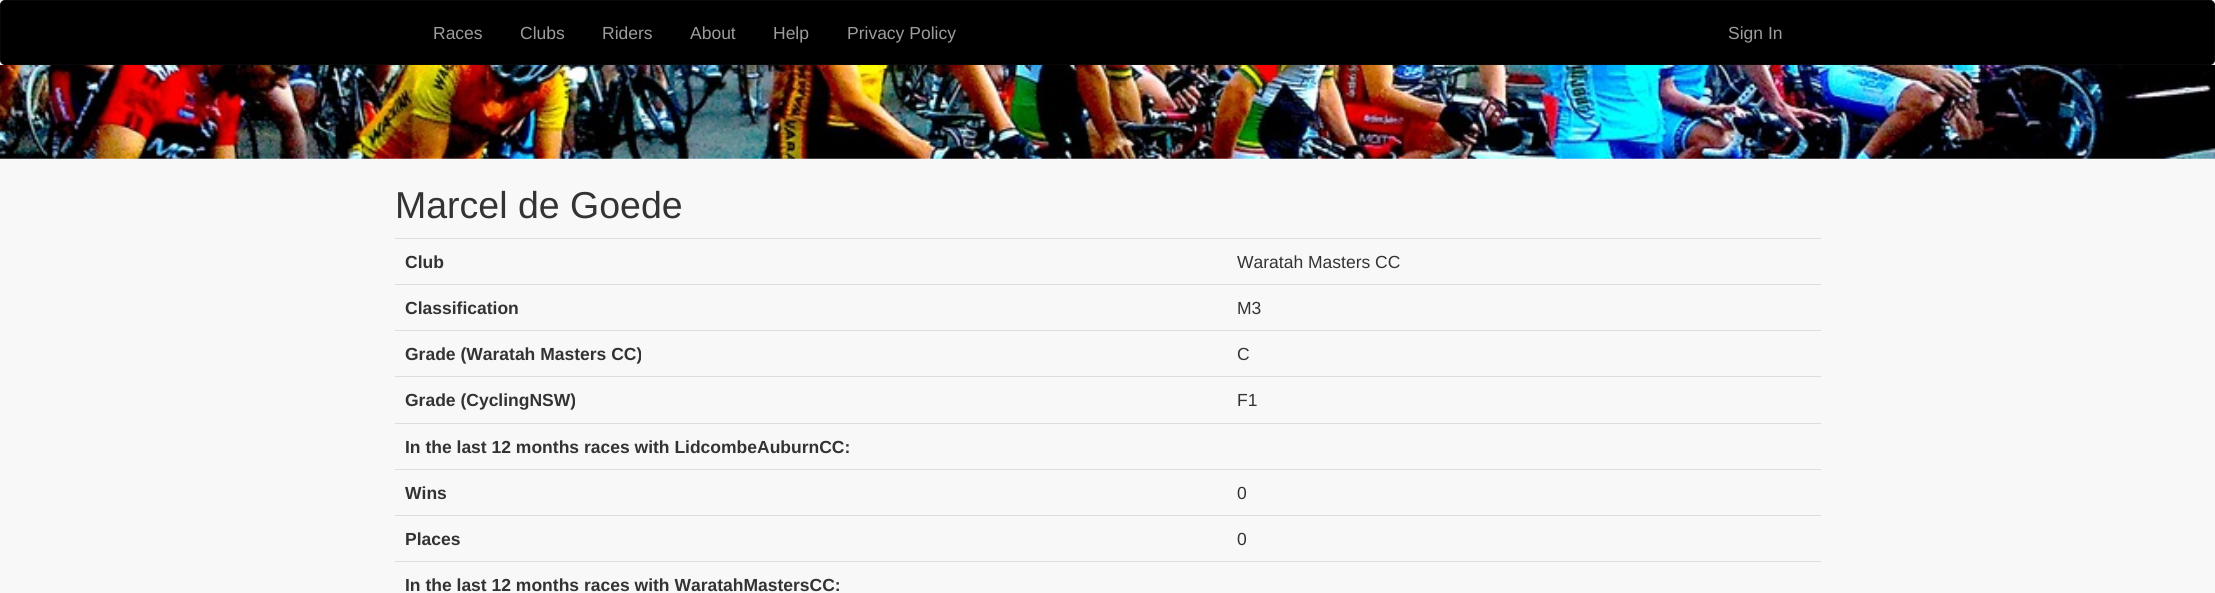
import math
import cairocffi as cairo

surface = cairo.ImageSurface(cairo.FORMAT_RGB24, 2215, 593)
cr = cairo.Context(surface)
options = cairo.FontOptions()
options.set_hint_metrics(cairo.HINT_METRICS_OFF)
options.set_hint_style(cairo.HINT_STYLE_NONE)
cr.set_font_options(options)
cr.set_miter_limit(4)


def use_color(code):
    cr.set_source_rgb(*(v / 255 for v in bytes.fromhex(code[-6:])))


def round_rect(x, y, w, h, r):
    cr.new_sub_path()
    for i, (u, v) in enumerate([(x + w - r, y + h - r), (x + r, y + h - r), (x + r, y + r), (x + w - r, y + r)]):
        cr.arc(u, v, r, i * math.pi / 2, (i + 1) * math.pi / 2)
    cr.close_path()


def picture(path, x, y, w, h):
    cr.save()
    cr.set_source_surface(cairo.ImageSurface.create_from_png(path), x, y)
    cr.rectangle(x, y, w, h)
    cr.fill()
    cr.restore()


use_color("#f8f8f8")
cr.paint()
use_color("#000000")
round_rect(0.5, 0.5, 2214, 64, 4.5)
cr.fill_preserve()
use_color("#080808")
cr.set_line_width(1)
cr.stroke()
cr.select_font_face("Liberation Sans")
cr.set_font_size(17.5)
use_color("#9d9d9d")
cr.move_to(433, 39)
cr.show_text("Races")
cr.move_to(520, 39)
cr.show_text("Clubs")
cr.move_to(602, 39)
cr.show_text("Riders")
cr.move_to(690, 39)
cr.show_text("About")
cr.move_to(773, 39)
cr.show_text("Help")
cr.move_to(847, 39)
cr.show_text("Privacy Policy")
cr.move_to(1728, 39)
cr.show_text("Sign In")
picture("img1.png", 0, 65, 2215, 94)
cr.set_font_size(37.5)
use_color("#333333")
cr.move_to(395, 218)
cr.show_text("Marcel de Goede")
cr.select_font_face("Liberation Sans", cairo.FONT_SLANT_NORMAL, cairo.FONT_WEIGHT_BOLD)
cr.set_font_size(17.5)
cr.move_to(405, 268)
cr.show_text("Club")
use_color("#dddddd")
cr.rectangle(395, 238, 1426, 1)
cr.fill()
cr.select_font_face("Liberation Sans")
use_color("#333333")
cr.move_to(1237, 268)
cr.show_text("Waratah Masters CC")
cr.select_font_face("Liberation Sans", cairo.FONT_SLANT_NORMAL, cairo.FONT_WEIGHT_BOLD)
cr.move_to(405, 314)
cr.show_text("Classification")
use_color("#dddddd")
cr.rectangle(395, 284, 1426, 1)
cr.fill()
cr.select_font_face("Liberation Sans")
use_color("#333333")
cr.move_to(1237, 314)
cr.show_text("M3")
cr.select_font_face("Liberation Sans", cairo.FONT_SLANT_NORMAL, cairo.FONT_WEIGHT_BOLD)
cr.move_to(405, 360)
cr.show_text("Grade (Waratah Masters CC)")
use_color("#dddddd")
cr.rectangle(395, 330, 1426, 1)
cr.fill()
cr.select_font_face("Liberation Sans")
use_color("#333333")
cr.move_to(1237, 360)
cr.show_text("C")
cr.select_font_face("Liberation Sans", cairo.FONT_SLANT_NORMAL, cairo.FONT_WEIGHT_BOLD)
cr.move_to(405, 406)
cr.show_text("Grade (CyclingNSW)")
use_color("#dddddd")
cr.rectangle(395, 376, 1426, 1)
cr.fill()
cr.select_font_face("Liberation Sans")
use_color("#333333")
cr.move_to(1237, 406)
cr.show_text("F1")
use_color("#dddddd")
cr.rectangle(395, 423, 1426, 1)
cr.fill()
cr.select_font_face("Liberation Sans", cairo.FONT_SLANT_NORMAL, cairo.FONT_WEIGHT_BOLD)
use_color("#333333")
cr.move_to(405, 453)
cr.show_text("In the last 12 months races with LidcombeAuburnCC:")
cr.move_to(405, 499)
cr.show_text("Wins")
use_color("#dddddd")
cr.rectangle(395, 469, 1426, 1)
cr.fill()
cr.select_font_face("Liberation Sans")
use_color("#333333")
cr.move_to(1237, 499)
cr.show_text("0")
cr.select_font_face("Liberation Sans", cairo.FONT_SLANT_NORMAL, cairo.FONT_WEIGHT_BOLD)
cr.move_to(405, 545)
cr.show_text("Places")
use_color("#dddddd")
cr.rectangle(395, 515, 1426, 1)
cr.fill()
cr.select_font_face("Liberation Sans")
use_color("#333333")
cr.move_to(1237, 545)
cr.show_text("0")
use_color("#dddddd")
cr.rectangle(395, 561, 1426, 1)
cr.fill()
cr.select_font_face("Liberation Sans", cairo.FONT_SLANT_NORMAL, cairo.FONT_WEIGHT_BOLD)
use_color("#333333")
cr.move_to(405, 591)
cr.show_text("In the last 12 months races with WaratahMastersCC:")
surface.write_to_png("result.png")
